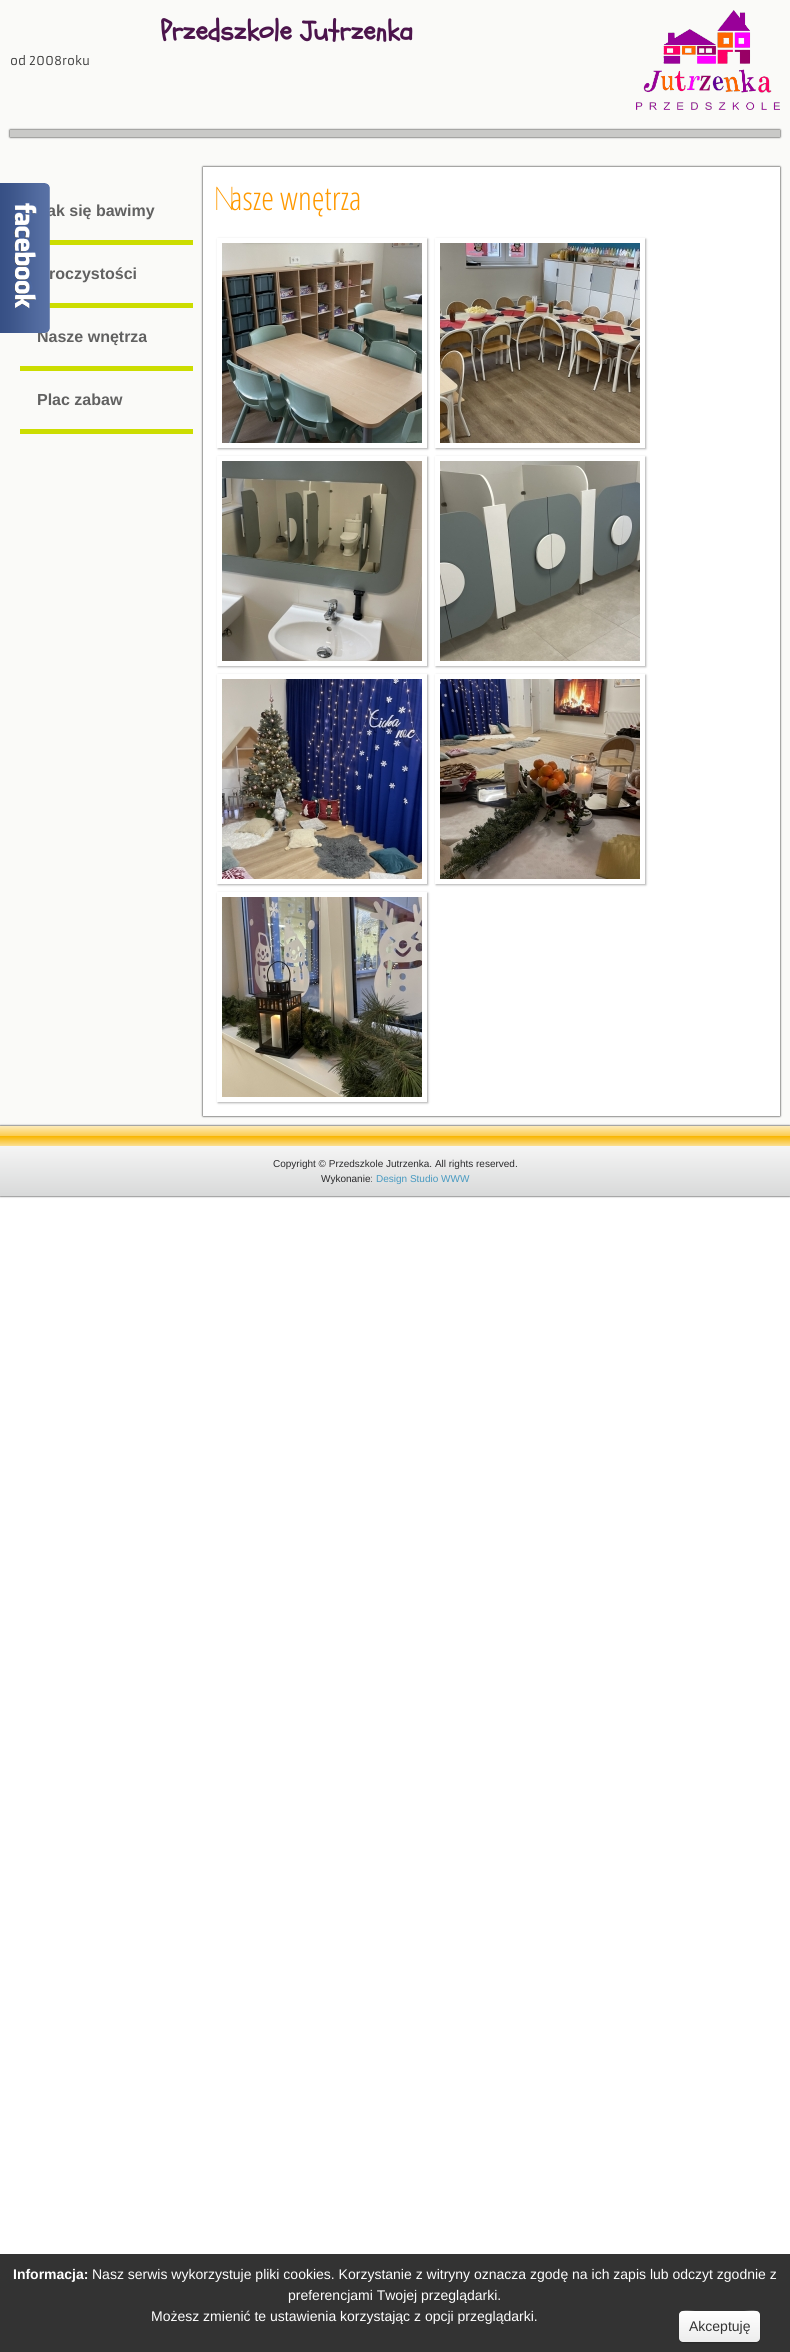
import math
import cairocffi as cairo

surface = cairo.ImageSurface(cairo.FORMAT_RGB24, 790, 2352)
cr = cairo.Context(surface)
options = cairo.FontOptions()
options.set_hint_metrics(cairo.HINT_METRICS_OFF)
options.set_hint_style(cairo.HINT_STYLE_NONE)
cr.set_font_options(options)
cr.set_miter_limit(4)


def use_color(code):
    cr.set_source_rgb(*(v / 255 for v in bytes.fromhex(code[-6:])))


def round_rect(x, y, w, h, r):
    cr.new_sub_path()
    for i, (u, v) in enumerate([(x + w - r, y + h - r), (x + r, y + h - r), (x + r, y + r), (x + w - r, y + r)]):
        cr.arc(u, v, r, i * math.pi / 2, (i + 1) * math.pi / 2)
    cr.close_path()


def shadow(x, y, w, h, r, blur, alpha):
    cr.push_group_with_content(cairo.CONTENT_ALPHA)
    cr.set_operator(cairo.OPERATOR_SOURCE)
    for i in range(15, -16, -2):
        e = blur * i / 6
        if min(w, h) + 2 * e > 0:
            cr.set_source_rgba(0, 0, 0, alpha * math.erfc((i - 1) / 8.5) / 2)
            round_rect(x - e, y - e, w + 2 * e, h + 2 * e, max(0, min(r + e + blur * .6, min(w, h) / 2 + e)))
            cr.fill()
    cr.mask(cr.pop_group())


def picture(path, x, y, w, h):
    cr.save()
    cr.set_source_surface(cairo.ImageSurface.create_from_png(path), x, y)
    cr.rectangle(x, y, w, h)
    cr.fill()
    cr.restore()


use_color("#ffffff")
cr.paint()
use_color("#fafaf8")
cr.rectangle(0, 0, 790, 1126)
cr.fill()
cr.select_font_face("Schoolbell", cairo.FONT_SLANT_NORMAL, cairo.FONT_WEIGHT_BOLD)
cr.set_font_size(28)
use_color("#4c154c")
cr.move_to(160, 40)
cr.show_text("Przedszkole Jutrzenka")
picture("img1.png", 636, 10, 144, 100)
cr.select_font_face("Armata")
cr.set_font_size(12)
use_color("#333333")
cr.move_to(10, 65)
cr.show_text("od 2008roku")
use_color("#000000")
shadow(10, 130, 770, 7, 0, 1, 1)
use_color("#c9c9c7")
cr.rectangle(10, 130, 770, 7)
cr.fill()
use_color("#ccdd00")
cr.rectangle(49, 240, 144, 5)
cr.fill()
cr.select_font_face("Liberation Sans", cairo.FONT_SLANT_NORMAL, cairo.FONT_WEIGHT_BOLD)
cr.set_font_size(16)
use_color("#616161")
cr.move_to(47, 216)
cr.show_text("ak się bawimy")
use_color("#ccdd00")
cr.rectangle(49, 303, 144, 5)
cr.fill()
use_color("#616161")
cr.move_to(49, 279)
cr.show_text("roczystości")
use_color("#ccdd00")
cr.rectangle(20, 366, 173, 5)
cr.fill()
use_color("#616161")
cr.move_to(37, 342)
cr.show_text("Nasze wnętrza")
use_color("#ccdd00")
cr.rectangle(20, 429, 173, 5)
cr.fill()
use_color("#616161")
cr.move_to(37, 405)
cr.show_text("Plac zabaw")
use_color("#000000")
shadow(203, 167, 577, 949, 0, 1, 1)
use_color("#ffffff")
cr.rectangle(203, 167, 577, 949)
cr.fill()
cr.select_font_face("Noto Sans Thin")
cr.set_font_size(32.5)
use_color("#ff9900")
cr.move_to(213, 210)
cr.show_text("N")
cr.select_font_face("Open Sans Condensed Light")
cr.move_to(230, 210)
cr.show_text("asze wnętrza")
cr.save()
cr.set_fill_rule(cairo.FILL_RULE_EVEN_ODD)
cr.new_path()
cr.move_to(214, 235)
cr.line_to(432, 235)
cr.line_to(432, 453)
cr.line_to(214, 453)
cr.close_path()
cr.move_to(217, 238)
cr.line_to(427, 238)
cr.line_to(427, 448)
cr.line_to(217, 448)
cr.close_path()
cr.clip()
use_color("#b0b0b0")
shadow(218, 239, 210, 210, 0, 1, 1)
cr.restore()
picture("img2.png", 222, 243, 200, 200)
cr.save()
cr.set_fill_rule(cairo.FILL_RULE_EVEN_ODD)
cr.new_path()
cr.move_to(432, 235)
cr.line_to(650, 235)
cr.line_to(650, 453)
cr.line_to(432, 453)
cr.close_path()
cr.move_to(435, 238)
cr.line_to(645, 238)
cr.line_to(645, 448)
cr.line_to(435, 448)
cr.close_path()
cr.clip()
use_color("#b0b0b0")
shadow(436, 239, 210, 210, 0, 1, 1)
cr.restore()
picture("img3.png", 440, 243, 200, 200)
cr.save()
cr.set_fill_rule(cairo.FILL_RULE_EVEN_ODD)
cr.new_path()
cr.move_to(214, 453)
cr.line_to(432, 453)
cr.line_to(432, 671)
cr.line_to(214, 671)
cr.close_path()
cr.move_to(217, 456)
cr.line_to(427, 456)
cr.line_to(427, 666)
cr.line_to(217, 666)
cr.close_path()
cr.clip()
use_color("#b0b0b0")
shadow(218, 457, 210, 210, 0, 1, 1)
cr.restore()
picture("img4.png", 222, 461, 200, 200)
cr.save()
cr.set_fill_rule(cairo.FILL_RULE_EVEN_ODD)
cr.new_path()
cr.move_to(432, 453)
cr.line_to(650, 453)
cr.line_to(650, 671)
cr.line_to(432, 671)
cr.close_path()
cr.move_to(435, 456)
cr.line_to(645, 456)
cr.line_to(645, 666)
cr.line_to(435, 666)
cr.close_path()
cr.clip()
use_color("#b0b0b0")
shadow(436, 457, 210, 210, 0, 1, 1)
cr.restore()
picture("img5.png", 440, 461, 200, 200)
cr.save()
cr.set_fill_rule(cairo.FILL_RULE_EVEN_ODD)
cr.new_path()
cr.move_to(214, 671)
cr.line_to(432, 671)
cr.line_to(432, 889)
cr.line_to(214, 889)
cr.close_path()
cr.move_to(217, 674)
cr.line_to(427, 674)
cr.line_to(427, 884)
cr.line_to(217, 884)
cr.close_path()
cr.clip()
use_color("#b0b0b0")
shadow(218, 675, 210, 210, 0, 1, 1)
cr.restore()
picture("img6.png", 222, 679, 200, 200)
cr.save()
cr.set_fill_rule(cairo.FILL_RULE_EVEN_ODD)
cr.new_path()
cr.move_to(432, 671)
cr.line_to(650, 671)
cr.line_to(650, 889)
cr.line_to(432, 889)
cr.close_path()
cr.move_to(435, 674)
cr.line_to(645, 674)
cr.line_to(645, 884)
cr.line_to(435, 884)
cr.close_path()
cr.clip()
use_color("#b0b0b0")
shadow(436, 675, 210, 210, 0, 1, 1)
cr.restore()
picture("img7.png", 440, 679, 200, 200)
cr.save()
cr.set_fill_rule(cairo.FILL_RULE_EVEN_ODD)
cr.new_path()
cr.move_to(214, 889)
cr.line_to(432, 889)
cr.line_to(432, 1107)
cr.line_to(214, 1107)
cr.close_path()
cr.move_to(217, 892)
cr.line_to(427, 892)
cr.line_to(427, 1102)
cr.line_to(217, 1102)
cr.close_path()
cr.clip()
use_color("#b0b0b0")
shadow(218, 893, 210, 210, 0, 1, 1)
cr.restore()
picture("img8.png", 222, 897, 200, 200)
use_color("#000000")
shadow(0, 1126, 790, 70, 0, 1, 1)
gradient = cairo.LinearGradient(395, 1126, 395, 1146)
gradient.add_color_stop_rgba(0, 0.988, 0.918, 0.733, 1)
gradient.add_color_stop_rgba(0.5, 0.988, 0.804, 0.302, 1)
gradient.add_color_stop_rgba(0.51, 0.973, 0.71, 0, 1)
gradient.add_color_stop_rgba(1, 0.984, 0.875, 0.576, 1)
cr.set_source(gradient)
cr.rectangle(0, 1126, 790, 20)
cr.fill()
gradient = cairo.LinearGradient(395, 1146, 395, 1196)
gradient.add_color_stop_rgba(0, 0.961, 0.961, 0.961, 1)
gradient.add_color_stop_rgba(1, 0.847, 0.851, 0.851, 1)
cr.set_source(gradient)
cr.rectangle(0, 1146, 790, 50)
cr.fill()
cr.select_font_face("Liberation Sans")
cr.set_font_size(10)
use_color("#2b2b2d")
cr.move_to(273, 1167)
cr.show_text("Copyright © Przedszkole Jutrzenka. All rights reserved.")
cr.move_to(321, 1182)
cr.show_text("Wykonanie:")
use_color("#489ac1")
cr.move_to(376, 1182)
cr.show_text("Design Studio WWW")
picture("img9.png", 0, 183, 50, 150)
use_color("#333333")
cr.rectangle(0, 2254, 790, 98)
cr.fill()
cr.select_font_face("Liberation Sans", cairo.FONT_SLANT_NORMAL, cairo.FONT_WEIGHT_BOLD)
cr.set_font_size(14)
use_color("#ffffff")
cr.move_to(13, 2279)
cr.show_text("Informacja:")
cr.select_font_face("Liberation Sans")
cr.move_to(92, 2279)
cr.show_text("Nasz serwis wykorzystuje pliki cookies. Korzystanie z witryny oznacza zgodę na ich zapis lub odczyt zgodnie z")
cr.move_to(288, 2300)
cr.show_text("preferencjami Twojej przeglądarki.")
cr.move_to(151, 2321)
cr.show_text("Możesz zmienić te ustawienia korzystając z opcji przeglądarki.")
use_color("#000000")
shadow(679, 2312, 81, 31, 4, 0.5, 0.2)
gradient = cairo.LinearGradient(720, 2311, 720, 2342)
gradient.add_color_stop_rgba(0, 1, 1, 1, 1)
gradient.add_color_stop_rgba(0.47, 0.965, 0.965, 0.965, 1)
gradient.add_color_stop_rgba(1, 0.929, 0.929, 0.929, 1)
cr.set_source(gradient)
round_rect(679, 2311, 81, 31, 4)
cr.fill()
cr.set_source_rgba(1, 1, 1, 0.4)
cr.new_path()
cr.move_to(683, 2312)
cr.line_to(756, 2312)
cr.curve_to(758, 2312, 760, 2314, 760, 2316)
cr.curve_to(760, 2308, 749, 2311, 744, 2311)
cr.line_to(695, 2311)
cr.curve_to(690, 2311, 679, 2308, 679, 2316)
cr.curve_to(679, 2314, 681, 2312, 683, 2312)
cr.close_path()
cr.fill()
use_color("#333333")
cr.move_to(689, 2331)
cr.show_text("Akceptuję")
surface.write_to_png("result.png")
